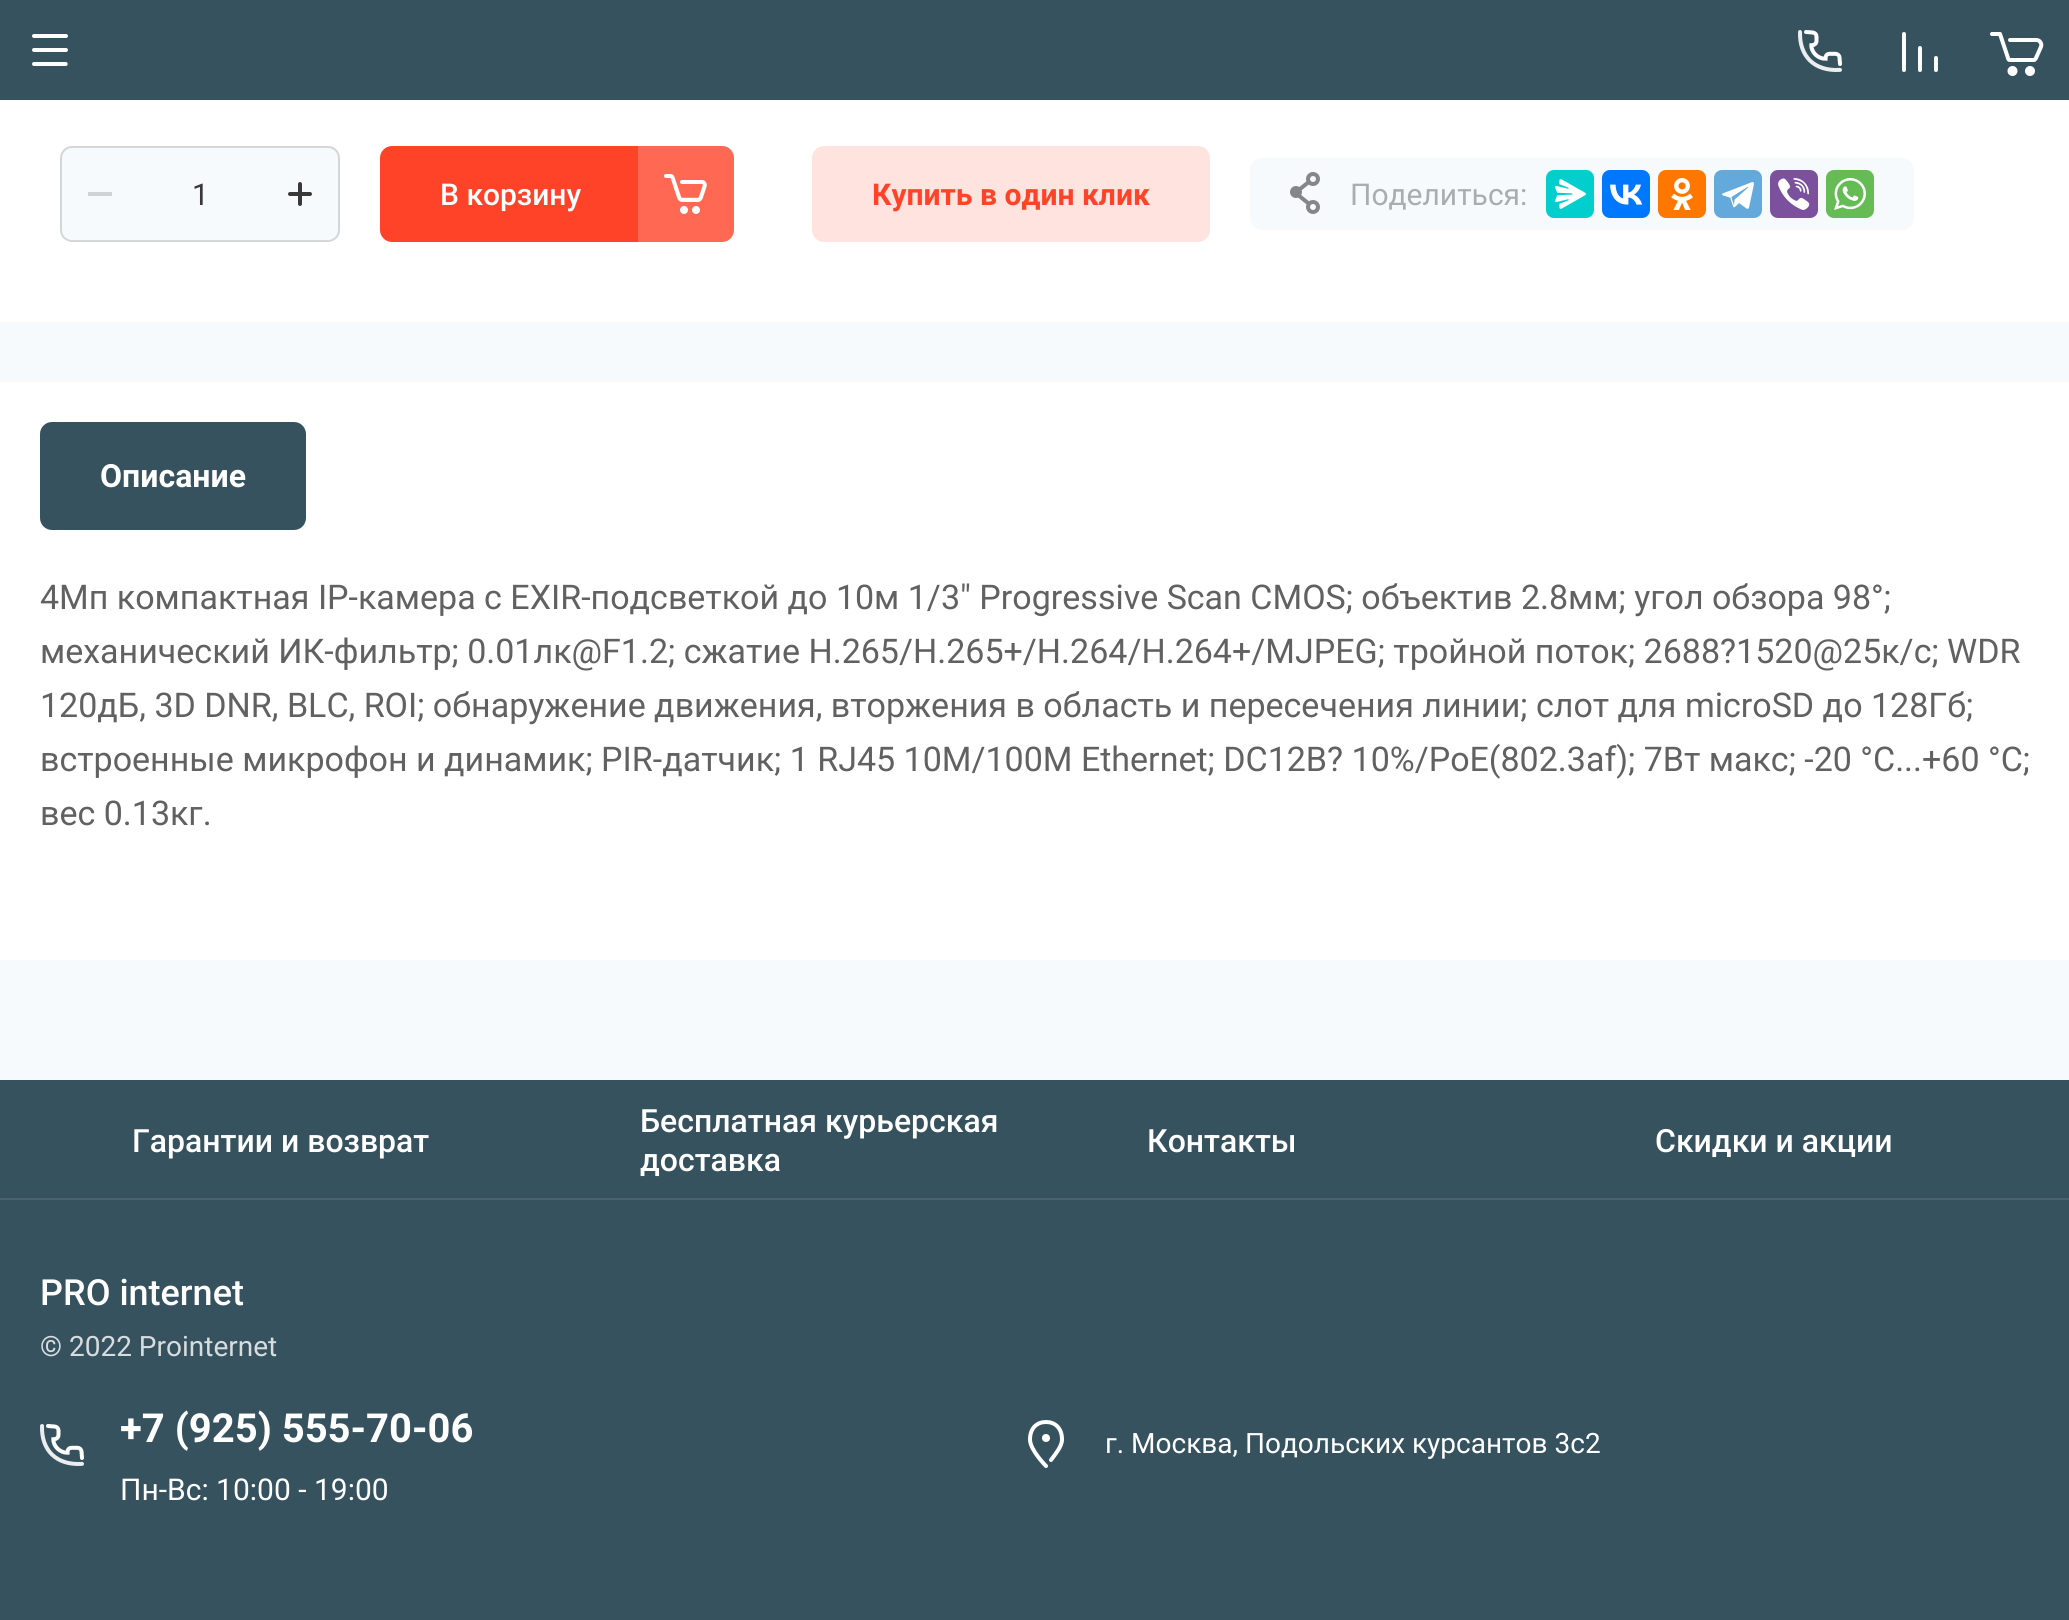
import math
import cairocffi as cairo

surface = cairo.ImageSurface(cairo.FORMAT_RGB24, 2069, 1620)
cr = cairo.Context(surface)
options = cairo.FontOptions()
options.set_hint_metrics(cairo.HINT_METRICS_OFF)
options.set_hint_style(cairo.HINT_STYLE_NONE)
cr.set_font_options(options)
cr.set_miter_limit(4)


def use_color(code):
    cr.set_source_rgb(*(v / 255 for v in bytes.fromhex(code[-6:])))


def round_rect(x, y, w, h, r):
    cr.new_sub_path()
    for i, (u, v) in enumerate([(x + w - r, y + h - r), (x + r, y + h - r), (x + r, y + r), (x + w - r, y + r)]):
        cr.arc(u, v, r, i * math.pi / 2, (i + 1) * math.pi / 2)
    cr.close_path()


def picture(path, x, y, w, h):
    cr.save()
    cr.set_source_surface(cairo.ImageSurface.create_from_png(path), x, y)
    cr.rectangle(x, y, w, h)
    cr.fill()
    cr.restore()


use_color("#f6fafc")
cr.paint()
use_color("#37525f")
cr.rectangle(0, 0, 2069, 100)
cr.fill()
picture("img1.png", 32, 34, 36, 32)
picture("img2.png", 1798, 30, 44, 42)
picture("img3.png", 1902, 32, 36, 40)
picture("img4.png", 1990, 32, 54, 44)
use_color("#ffffff")
cr.rectangle(0, 100, 2069, 222)
cr.fill()
use_color("#f6fafc")
round_rect(60, 146, 280, 96, 12)
cr.fill()
round_rect(61, 147, 278, 94, 11)
cr.set_source_rgba(0.071, 0.071, 0.071, 0.15)
cr.stroke()
use_color("#d0d3d5")
cr.rectangle(88, 192, 24, 4)
cr.fill()
cr.select_font_face("Roboto")
cr.set_font_size(30)
use_color("#393939")
cr.move_to(192, 205)
cr.show_text("1")
picture("img5.png", 288, 182, 24, 24)
use_color("#ff4329")
round_rect(380, 146, 354, 96, 12)
cr.fill()
cr.select_font_face("Roboto Medium")
use_color("#ffffff")
cr.move_to(440, 205)
cr.show_text("В корзину")
cr.set_source_rgba(1, 1, 1, 0.2)
cr.new_path()
cr.move_to(638, 146)
cr.line_to(722, 146)
cr.curve_to(728.5, 146, 734, 151.5, 734, 158)
cr.line_to(734, 230)
cr.curve_to(734, 236.5, 728.5, 242, 722, 242)
cr.line_to(638, 242)
cr.close_path()
cr.fill()
picture("img6.png", 664, 174, 43, 40)
use_color("#ffe3df")
round_rect(812, 146, 398, 96, 12)
cr.fill()
cr.select_font_face("Roboto", cairo.FONT_SLANT_NORMAL, cairo.FONT_WEIGHT_BOLD)
use_color("#ff4329")
cr.move_to(872, 205)
cr.show_text("Купить в один клик")
use_color("#f6fafc")
round_rect(1250, 158, 664, 72, 12)
cr.fill()
picture("img7.png", 1290, 172, 30, 42)
cr.select_font_face("Roboto")
use_color("#aaadae")
cr.move_to(1350, 205)
cr.show_text("Поделиться:")
use_color("#03cece")
round_rect(1546, 170, 48, 48, 8)
cr.fill()
picture("img8.png", 1555, 179, 31, 30)
use_color("#0077ff")
round_rect(1602, 170, 48, 48, 8)
cr.fill()
picture("img9.png", 1610, 184, 33, 21)
use_color("#ff7700")
round_rect(1658, 170, 48, 48, 8)
cr.fill()
picture("img10.png", 1671, 178, 22, 32)
use_color("#64a9dc")
round_rect(1714, 170, 48, 48, 8)
cr.fill()
picture("img11.png", 1722, 182, 32, 27)
use_color("#7b519d")
round_rect(1770, 170, 48, 48, 8)
cr.fill()
picture("img12.png", 1778, 178, 32, 32)
use_color("#65bc54")
round_rect(1826, 170, 48, 48, 8)
cr.fill()
picture("img13.png", 1834, 178, 32, 32)
use_color("#ffffff")
cr.rectangle(0, 382, 2069, 578)
cr.fill()
use_color("#37525f")
round_rect(40, 422, 266, 108, 12)
cr.fill()
cr.select_font_face("Roboto", cairo.FONT_SLANT_NORMAL, cairo.FONT_WEIGHT_BOLD)
cr.set_font_size(32)
use_color("#ffffff")
cr.move_to(100, 487)
cr.show_text("Описание")
cr.select_font_face("Roboto")
cr.set_font_size(34)
use_color("#616161")
cr.move_to(40, 609)
cr.show_text("4Мп компактная IP-камера с EXIR-подсветкой до 10м 1/3\" Progressive Scan CMOS; объектив 2.8мм; угол обзора 98°;")
cr.move_to(40, 663)
cr.show_text("механический ИК-фильтр; 0.01лк@F1.2; сжатие H.265/H.265+/H.264/H.264+/MJPEG; тройной поток; 2688?1520@25к/с; WDR")
cr.move_to(40, 717)
cr.show_text("120дБ, 3D DNR, BLC, ROI; обнаружение движения, вторжения в область и пересечения линии; слот для microSD до 128Гб;")
cr.move_to(40, 771)
cr.show_text("встроенные микрофон и динамик; PIR-датчик; 1 RJ45 10M/100M Ethernet; DC12В? 10%/PoE(802.3af); 7Вт макс; -20 °C...+60 °C;")
cr.move_to(40, 825)
cr.show_text("вес 0.13кг.")
use_color("#37525f")
cr.rectangle(0, 1080, 2069, 118)
cr.fill()
cr.select_font_face("Roboto Medium")
cr.set_font_size(32)
use_color("#ffffff")
cr.move_to(132, 1152)
cr.show_text("Гарантии и возврат")
cr.move_to(640, 1132)
cr.show_text("Бесплатная курьерская")
cr.move_to(640, 1171)
cr.show_text("доставка")
cr.move_to(1147, 1152)
cr.show_text("Контакты")
cr.move_to(1655, 1152)
cr.show_text("Скидки и акции")
use_color("#4b636f")
cr.rectangle(0, 1198, 2069, 2)
cr.fill()
use_color("#37525f")
cr.rectangle(0, 1200, 2069, 420)
cr.fill()
cr.set_font_size(36)
use_color("#ffffff")
cr.move_to(40, 1305)
cr.show_text("PRO internet")
cr.select_font_face("Roboto")
cr.set_font_size(28)
use_color("#d7dcdf")
cr.move_to(40, 1356)
cr.show_text("© 2022 Prointernet")
picture("img2.png", 40, 1424, 44, 42)
cr.select_font_face("Roboto", cairo.FONT_SLANT_NORMAL, cairo.FONT_WEIGHT_BOLD)
cr.set_font_size(40)
use_color("#ffffff")
cr.move_to(120, 1442)
cr.show_text("+7 (925) 555-70-06")
cr.select_font_face("Roboto")
cr.set_font_size(30)
cr.move_to(120, 1500)
cr.show_text("Пн-Вс: 10:00 - 19:00")
cr.new_path()
cr.move_to(1046, 1466)
cr.curve_to(1046, 1466, 1030, 1450, 1030, 1439.5)
cr.curve_to(1030, 1428, 1037, 1422, 1046, 1422)
cr.curve_to(1055, 1422, 1062, 1428, 1062, 1439.5)
cr.curve_to(1062, 1446.5, 1055, 1454.5, 1051, 1460)
cr.set_line_width(4)
cr.set_line_cap(cairo.LINE_CAP_ROUND)
cr.stroke()
cr.arc(1046, 1438, 4, 0, 2 * math.pi)
cr.fill()
cr.set_font_size(28)
cr.move_to(1105, 1453)
cr.show_text("г. Москва, Подольских курсантов 3с2")
surface.write_to_png("result.png")
